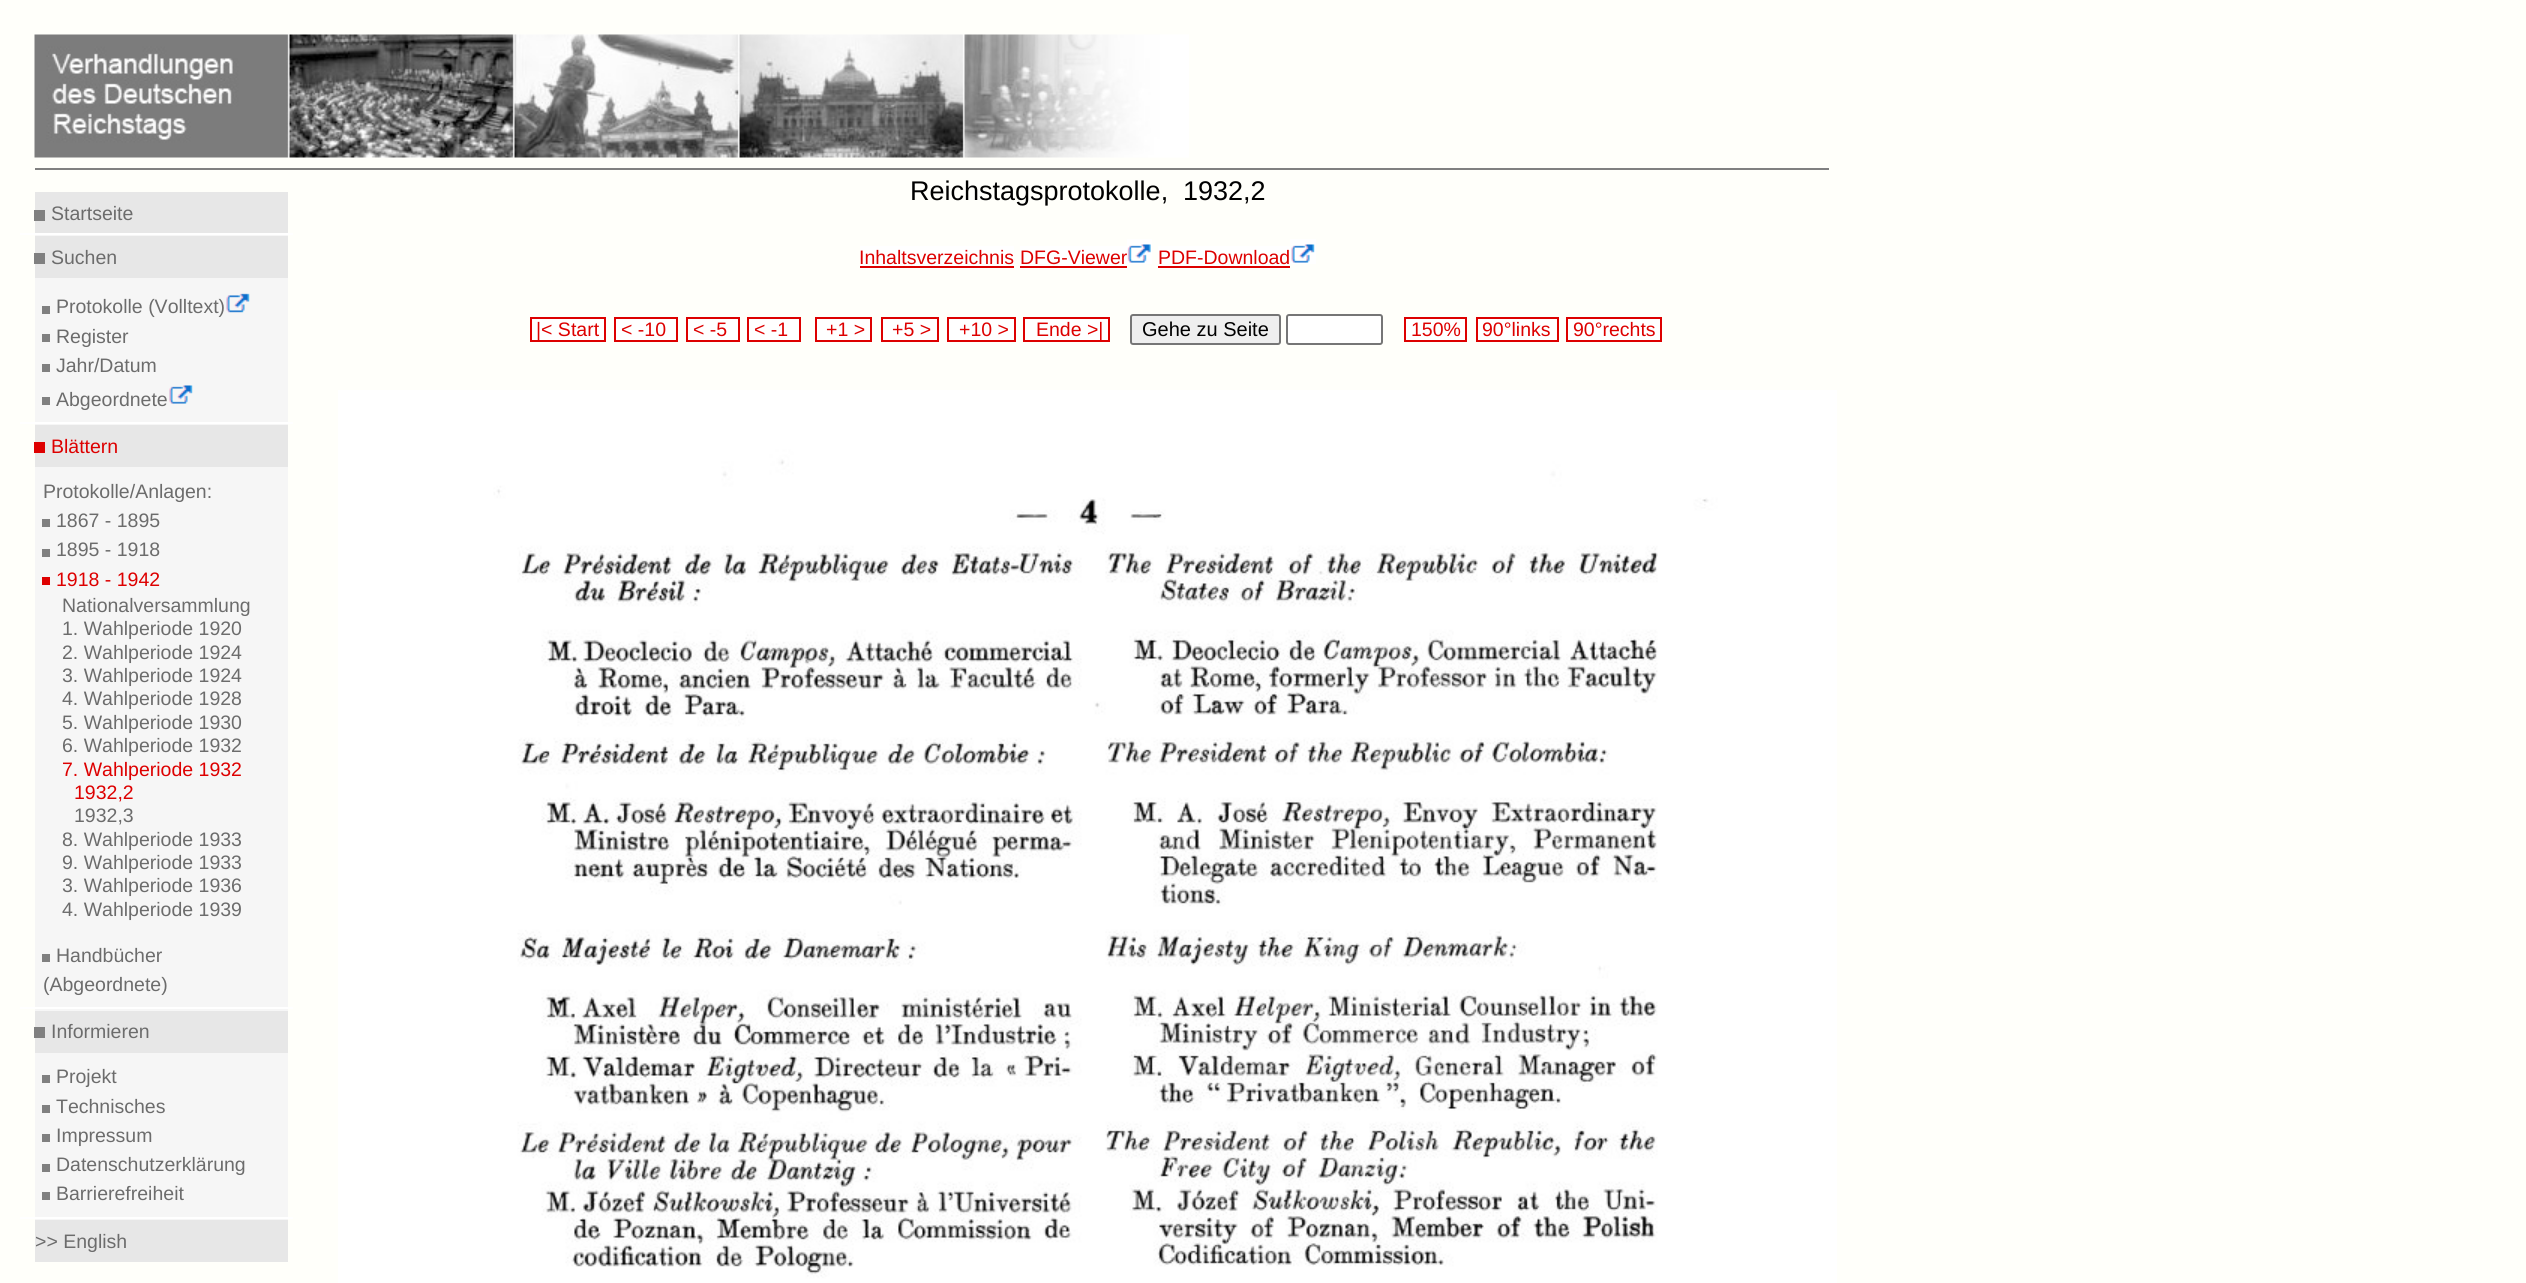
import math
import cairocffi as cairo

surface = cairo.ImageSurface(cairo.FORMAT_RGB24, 2526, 1283)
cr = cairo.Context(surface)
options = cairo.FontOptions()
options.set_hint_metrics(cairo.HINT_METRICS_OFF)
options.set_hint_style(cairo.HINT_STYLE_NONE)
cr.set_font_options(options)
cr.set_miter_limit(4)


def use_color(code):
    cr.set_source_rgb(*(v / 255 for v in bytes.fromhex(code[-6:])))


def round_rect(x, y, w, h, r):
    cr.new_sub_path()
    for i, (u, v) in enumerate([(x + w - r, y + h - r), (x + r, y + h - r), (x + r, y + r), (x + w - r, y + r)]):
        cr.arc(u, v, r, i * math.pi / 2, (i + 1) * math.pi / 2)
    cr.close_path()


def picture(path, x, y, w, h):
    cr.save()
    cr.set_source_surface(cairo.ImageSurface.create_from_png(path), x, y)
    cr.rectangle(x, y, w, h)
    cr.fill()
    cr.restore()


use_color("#fffffa")
cr.paint()
picture("img1.png", 34, 34, 1155, 124)
use_color("#808080")
cr.rectangle(35, 168, 1794, 2)
cr.fill()
use_color("#f6f6f6")
cr.rectangle(35, 235, 253, 985)
cr.fill()
use_color("#e7e7e7")
cr.rectangle(35, 192, 253, 41)
cr.fill()
use_color("#808080")
cr.rectangle(34, 210, 11, 11)
cr.fill()
cr.select_font_face("Liberation Sans")
cr.set_font_size(19.5)
use_color("#6c6c6c")
cr.move_to(51, 220)
cr.show_text("Startseite")
use_color("#ffffff")
cr.rectangle(20, 233, 273, 2)
cr.fill()
use_color("#e7e7e7")
cr.rectangle(35, 236, 253, 42)
cr.fill()
use_color("#808080")
cr.rectangle(34, 253, 11, 11)
cr.fill()
use_color("#6c6c6c")
cr.move_to(51, 264)
cr.show_text("Suchen")
use_color("#808080")
cr.rectangle(42, 306, 8, 8)
cr.fill()
use_color("#6c6c6c")
cr.move_to(56, 313)
cr.show_text("Protokolle (Volltext)")
picture("img2.png", 226, 293, 24, 20)
use_color("#808080")
cr.rectangle(42, 334, 8, 8)
cr.fill()
use_color("#6c6c6c")
cr.move_to(56, 343)
cr.show_text("Register")
use_color("#808080")
cr.rectangle(42, 364, 8, 8)
cr.fill()
use_color("#6c6c6c")
cr.move_to(56, 372)
cr.show_text("Jahr/Datum")
use_color("#808080")
cr.rectangle(42, 397, 8, 8)
cr.fill()
use_color("#6c6c6c")
cr.move_to(56, 406)
cr.show_text("Abgeordnete")
picture("img3.png", 169, 385, 24, 19)
use_color("#ffffff")
cr.rectangle(20, 422, 273, 2)
cr.fill()
use_color("#e7e7e7")
cr.rectangle(35, 425, 253, 42)
cr.fill()
use_color("#de0000")
cr.rectangle(34, 442, 11, 11)
cr.fill()
use_color("#dd0000")
cr.move_to(51, 453)
cr.show_text("Blättern")
use_color("#6c6c6c")
cr.move_to(43, 498)
cr.show_text("Protokolle/Anlagen:")
use_color("#808080")
cr.rectangle(42, 519, 8, 8)
cr.fill()
use_color("#6c6c6c")
cr.move_to(56, 527)
cr.show_text("1867 - 1895")
use_color("#808080")
cr.rectangle(42, 549, 8, 8)
cr.fill()
use_color("#6c6c6c")
cr.move_to(56, 556)
cr.show_text("1895 - 1918")
use_color("#de0000")
cr.rectangle(42, 577, 8, 8)
cr.fill()
use_color("#dd0000")
cr.move_to(56, 586)
cr.show_text("1918 - 1942")
use_color("#6c6c6c")
cr.move_to(62, 612)
cr.show_text("Nationalversammlung")
cr.move_to(62, 635)
cr.show_text("1. Wahlperiode 1920")
cr.move_to(62, 659)
cr.show_text("2. Wahlperiode 1924")
cr.move_to(62, 682)
cr.show_text("3. Wahlperiode 1924")
cr.move_to(62, 705)
cr.show_text("4. Wahlperiode 1928")
cr.move_to(62, 729)
cr.show_text("5. Wahlperiode 1930")
cr.move_to(62, 752)
cr.show_text("6. Wahlperiode 1932")
use_color("#dd0000")
cr.move_to(62, 776)
cr.show_text("7. Wahlperiode 1932")
cr.move_to(74, 799)
cr.show_text("1932,2")
use_color("#6c6c6c")
cr.move_to(74, 822)
cr.show_text("1932,3")
cr.move_to(62, 846)
cr.show_text("8. Wahlperiode 1933")
cr.move_to(62, 869)
cr.show_text("9. Wahlperiode 1933")
cr.move_to(62, 892)
cr.show_text("3. Wahlperiode 1936")
cr.move_to(62, 916)
cr.show_text("4. Wahlperiode 1939")
use_color("#808080")
cr.rectangle(42, 954, 8, 8)
cr.fill()
use_color("#6c6c6c")
cr.move_to(56, 962)
cr.show_text("Handbücher")
cr.move_to(43, 991)
cr.show_text("(Abgeordnete)")
use_color("#ffffff")
cr.rectangle(20, 1007, 273, 2)
cr.fill()
use_color("#e7e7e7")
cr.rectangle(35, 1011, 253, 42)
cr.fill()
use_color("#808080")
cr.rectangle(34, 1027, 11, 11)
cr.fill()
use_color("#6c6c6c")
cr.move_to(51, 1038)
cr.show_text("Informieren")
use_color("#808080")
cr.rectangle(42, 1075, 8, 8)
cr.fill()
use_color("#6c6c6c")
cr.move_to(56, 1083)
cr.show_text("Projekt")
use_color("#808080")
cr.rectangle(42, 1105, 8, 8)
cr.fill()
use_color("#6c6c6c")
cr.move_to(56, 1113)
cr.show_text("Technisches")
use_color("#808080")
cr.rectangle(42, 1134, 8, 8)
cr.fill()
use_color("#6c6c6c")
cr.move_to(56, 1142)
cr.show_text("Impressum")
use_color("#808080")
cr.rectangle(42, 1164, 8, 8)
cr.fill()
use_color("#6c6c6c")
cr.move_to(56, 1171)
cr.show_text("Datenschutzerklärung")
use_color("#808080")
cr.rectangle(42, 1192, 8, 8)
cr.fill()
use_color("#6c6c6c")
cr.move_to(56, 1200)
cr.show_text("Barrierefreiheit")
use_color("#ffffff")
cr.rectangle(20, 1217, 273, 2)
cr.fill()
use_color("#e7e7e7")
cr.rectangle(35, 1220, 253, 42)
cr.fill()
use_color("#6c6c6c")
cr.move_to(35, 1248)
cr.show_text(">> English")
cr.set_font_size(27)
use_color("#000000")
cr.move_to(910, 200)
cr.show_text("Reichstagsprotokolle,")
cr.move_to(1183, 200)
cr.show_text("1932,2")
use_color("#ffffff")
cr.rectangle(860, 246, 154, 23)
cr.fill()
cr.set_font_size(19.5)
use_color("#dd0000")
cr.move_to(859, 264)
cr.show_text("Inhaltsverzeichnis")
cr.rectangle(860, 266, 154, 2)
cr.fill()
use_color("#ffffff")
cr.rectangle(1020, 246, 107, 23)
cr.fill()
use_color("#dd0000")
cr.move_to(1020, 264)
cr.show_text("DFG-Viewer")
use_color("#ffffff")
cr.rectangle(1127, 239, 25, 25)
cr.fill()
use_color("#dd0000")
cr.rectangle(1020, 266, 107, 2)
cr.fill()
picture("img4.png", 1127, 244, 24, 19)
use_color("#ffffff")
cr.rectangle(1158, 246, 132, 23)
cr.fill()
use_color("#dd0000")
cr.move_to(1158, 264)
cr.show_text("PDF-Download")
use_color("#ffffff")
cr.rectangle(1290, 239, 26, 25)
cr.fill()
use_color("#dd0000")
cr.rectangle(1158, 266, 132, 2)
cr.fill()
picture("img5.png", 1291, 244, 24, 19)
use_color("#ffffff")
cr.rectangle(532, 319, 72, 21)
cr.fill()
use_color("#dd0000")
cr.move_to(536, 336)
cr.show_text("|< Start")
cr.rectangle(531, 318, 74, 23)
cr.stroke()
use_color("#ffffff")
cr.rectangle(616, 319, 60, 21)
cr.fill()
use_color("#dd0000")
cr.move_to(621, 336)
cr.show_text("< -10")
cr.rectangle(615, 318, 62, 23)
cr.stroke()
use_color("#ffffff")
cr.rectangle(688, 319, 50, 21)
cr.fill()
use_color("#dd0000")
cr.move_to(693, 336)
cr.show_text("< -5")
cr.rectangle(687, 318, 52, 23)
cr.stroke()
use_color("#ffffff")
cr.rectangle(749, 319, 50, 21)
cr.fill()
use_color("#dd0000")
cr.move_to(754, 336)
cr.show_text("< -1")
cr.rectangle(748, 318, 52, 23)
cr.stroke()
use_color("#ffffff")
cr.rectangle(817, 319, 53, 21)
cr.fill()
use_color("#dd0000")
cr.move_to(826, 336)
cr.show_text("+1 >")
cr.rectangle(816, 318, 55, 23)
cr.stroke()
use_color("#ffffff")
cr.rectangle(883, 319, 54, 21)
cr.fill()
use_color("#dd0000")
cr.move_to(892, 336)
cr.show_text("+5 >")
cr.rectangle(882, 318, 56, 23)
cr.stroke()
use_color("#ffffff")
cr.rectangle(949, 319, 65, 21)
cr.fill()
use_color("#dd0000")
cr.move_to(959, 336)
cr.show_text("+10 >")
cr.rectangle(948, 318, 67, 23)
cr.stroke()
use_color("#ffffff")
cr.rectangle(1025, 319, 83, 21)
cr.fill()
use_color("#dd0000")
cr.move_to(1036, 336)
cr.show_text("Ende >|")
cr.rectangle(1024, 318, 85, 23)
cr.stroke()
use_color("#efefef")
round_rect(1131, 315, 149, 29, 2)
cr.fill_preserve()
use_color("#767676")
cr.stroke()
cr.set_font_size(20)
use_color("#000000")
cr.move_to(1142, 336)
cr.show_text("Gehe zu Seite")
use_color("#ffffff")
round_rect(1287, 315, 95, 29, 2)
cr.fill_preserve()
use_color("#767676")
cr.stroke()
use_color("#ffffff")
cr.rectangle(1406, 319, 59, 21)
cr.fill()
cr.set_font_size(19.5)
use_color("#dd0000")
cr.move_to(1411, 336)
cr.show_text("150%")
cr.rectangle(1405, 318, 61, 23)
cr.stroke()
use_color("#ffffff")
cr.rectangle(1478, 319, 79, 21)
cr.fill()
use_color("#dd0000")
cr.move_to(1482, 336)
cr.show_text("90°links")
cr.rectangle(1477, 318, 81, 23)
cr.stroke()
use_color("#ffffff")
cr.rectangle(1568, 319, 92, 21)
cr.fill()
use_color("#dd0000")
cr.move_to(1573, 336)
cr.show_text("90°rechts")
cr.rectangle(1567, 318, 94, 23)
cr.stroke()
picture("img6.png", 338, 390, 1499, 893)
surface.write_to_png("result.png")
